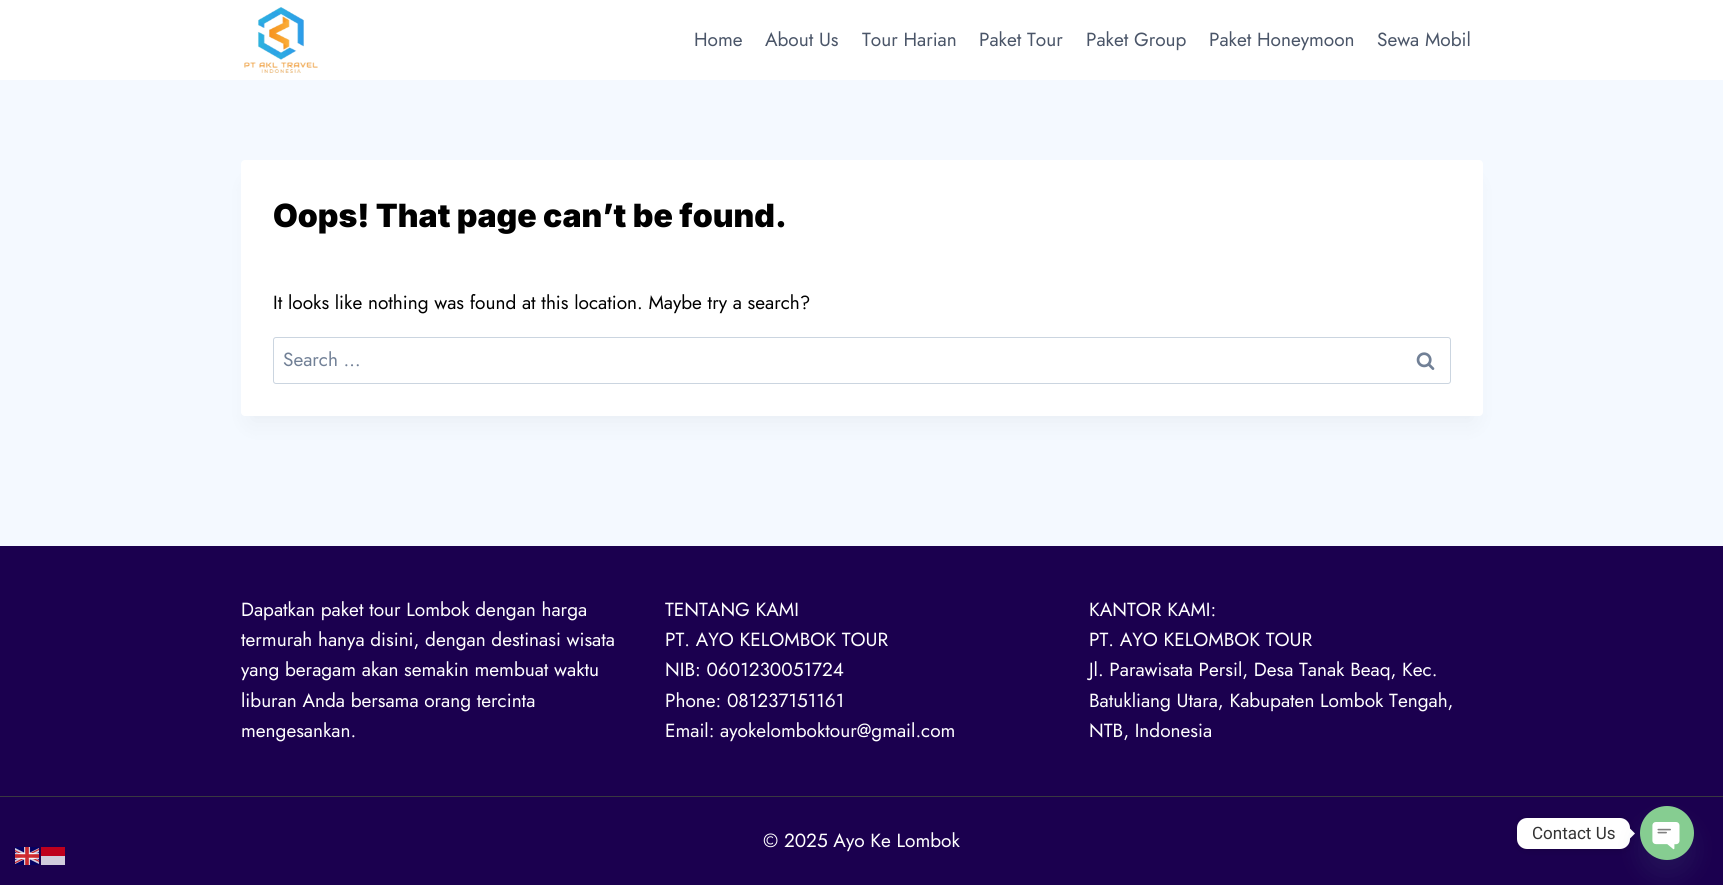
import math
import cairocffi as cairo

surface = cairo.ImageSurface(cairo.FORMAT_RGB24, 1723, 885)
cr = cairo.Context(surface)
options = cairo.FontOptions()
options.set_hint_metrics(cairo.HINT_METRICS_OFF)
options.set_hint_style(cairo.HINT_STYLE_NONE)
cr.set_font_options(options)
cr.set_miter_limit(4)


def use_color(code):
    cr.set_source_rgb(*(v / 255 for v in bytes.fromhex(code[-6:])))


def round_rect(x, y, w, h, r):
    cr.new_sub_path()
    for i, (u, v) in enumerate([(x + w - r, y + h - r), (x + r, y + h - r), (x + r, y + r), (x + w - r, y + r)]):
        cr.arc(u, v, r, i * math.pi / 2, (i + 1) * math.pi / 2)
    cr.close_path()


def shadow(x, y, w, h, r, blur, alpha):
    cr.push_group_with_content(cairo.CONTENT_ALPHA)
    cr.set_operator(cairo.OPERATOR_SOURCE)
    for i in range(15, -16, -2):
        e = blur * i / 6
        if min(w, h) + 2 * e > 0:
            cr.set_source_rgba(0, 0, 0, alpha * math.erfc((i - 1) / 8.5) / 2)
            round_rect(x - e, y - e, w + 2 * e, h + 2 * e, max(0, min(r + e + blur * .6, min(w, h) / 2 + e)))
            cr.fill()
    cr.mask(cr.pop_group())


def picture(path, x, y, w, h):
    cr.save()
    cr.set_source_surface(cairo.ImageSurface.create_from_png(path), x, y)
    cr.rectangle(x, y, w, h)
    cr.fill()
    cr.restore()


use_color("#f4f9ff")
cr.paint()
use_color("#ffffff")
cr.rectangle(0, 0, 1723, 80)
cr.fill()
picture("img1.png", 244, 7, 74, 66)
cr.select_font_face("Jost")
cr.set_font_size(19)
use_color("#4a5568")
cr.move_to(694, 46)
cr.show_text("Home")
cr.move_to(765, 46)
cr.show_text("About Us")
cr.move_to(862, 46)
cr.show_text("Tour Harian")
cr.move_to(979, 46)
cr.show_text("Paket Tour")
cr.move_to(1086, 46)
cr.show_text("Paket Group")
cr.move_to(1209, 46)
cr.show_text("Paket Honeymoon")
cr.move_to(1377, 46)
cr.show_text("Sewa Mobil")
use_color("#000000")
shadow(251, 185, 1222, 236, 0, 12.5, 0.05)
use_color("#ffffff")
round_rect(241, 160, 1242, 256, 4)
cr.fill()
cr.select_font_face("Inter Black")
cr.set_font_size(32)
use_color("#000000")
cr.move_to(273, 227)
cr.show_text("Oops! That page can’t be found.")
cr.select_font_face("Jost")
cr.set_font_size(19)
cr.move_to(273, 309)
cr.show_text("It looks like nothing was found at this location. Maybe try a search?")
round_rect(273.5, 337.5, 1177, 46, 2.5)
use_color("#cbd5e0")
cr.set_line_width(1)
cr.stroke()
use_color("#718096")
cr.move_to(283, 366)
cr.show_text("Search …")
picture("img2.png", 1416, 352, 19, 18)
use_color("#1b004f")
cr.rectangle(0, 546, 1723, 250)
cr.fill()
use_color("#ffffff")
cr.move_to(241, 616)
cr.show_text("Dapatkan paket tour Lombok dengan harga")
cr.move_to(241, 646)
cr.show_text("termurah hanya disini, dengan destinasi wisata")
cr.move_to(241, 676)
cr.show_text("yang beragam akan semakin membuat waktu")
cr.move_to(241, 707)
cr.show_text("liburan Anda bersama orang tercinta")
cr.move_to(241, 737)
cr.show_text("mengesankan.")
cr.move_to(665, 616)
cr.show_text("TENTANG KAMI")
cr.move_to(665, 646)
cr.show_text("PT. AYO KELOMBOK TOUR")
cr.move_to(665, 676)
cr.show_text("NIB: 0601230051724")
cr.move_to(665, 707)
cr.show_text("Phone: 081237151161")
cr.move_to(665, 737)
cr.show_text("Email: ayokelomboktour@gmail.com")
cr.move_to(1089, 616)
cr.show_text("KANTOR KAMI:")
cr.move_to(1089, 646)
cr.show_text("PT. AYO KELOMBOK TOUR")
cr.move_to(1089, 676)
cr.show_text("Jl. Parawisata Persil, Desa Tanak Beaq, Kec.")
cr.move_to(1089, 707)
cr.show_text("Batukliang Utara, Kabupaten Lombok Tengah,")
cr.move_to(1089, 737)
cr.show_text("NTB, Indonesia")
use_color("#1b004f")
cr.rectangle(0, 797, 1723, 88)
cr.fill()
use_color("#393841")
cr.rectangle(0, 796, 1723, 1)
cr.fill()
use_color("#ffffff")
cr.move_to(763, 847)
cr.show_text("© 2025 Ayo Ke Lombok")
use_color("#000000")
shadow(1517, 819, 113, 31, 10, 4, 0.15)
use_color("#ffffff")
round_rect(1517, 818, 113, 31, 10)
cr.fill()
cr.select_font_face("Roboto")
cr.set_font_size(17)
use_color("#333333")
cr.move_to(1532, 839)
cr.show_text("Contact Us")
use_color("#ffffff")
cr.new_path()
cr.move_to(1630, 838.5)
cr.line_to(1630, 828.5)
cr.line_to(1635, 833.5)
cr.close_path()
cr.fill()
use_color("#49687e")
shadow(1640, 822, 54, 54, 27, 12, 0.16)
picture("img3.png", 1640, 806, 54, 54)
picture("img4.png", 15, 847, 24, 18)
use_color("#be001d")
cr.rectangle(41, 847, 24, 9)
cr.fill()
use_color("#d1ccdc")
cr.rectangle(41, 856, 24, 9)
cr.fill()
surface.write_to_png("result.png")
